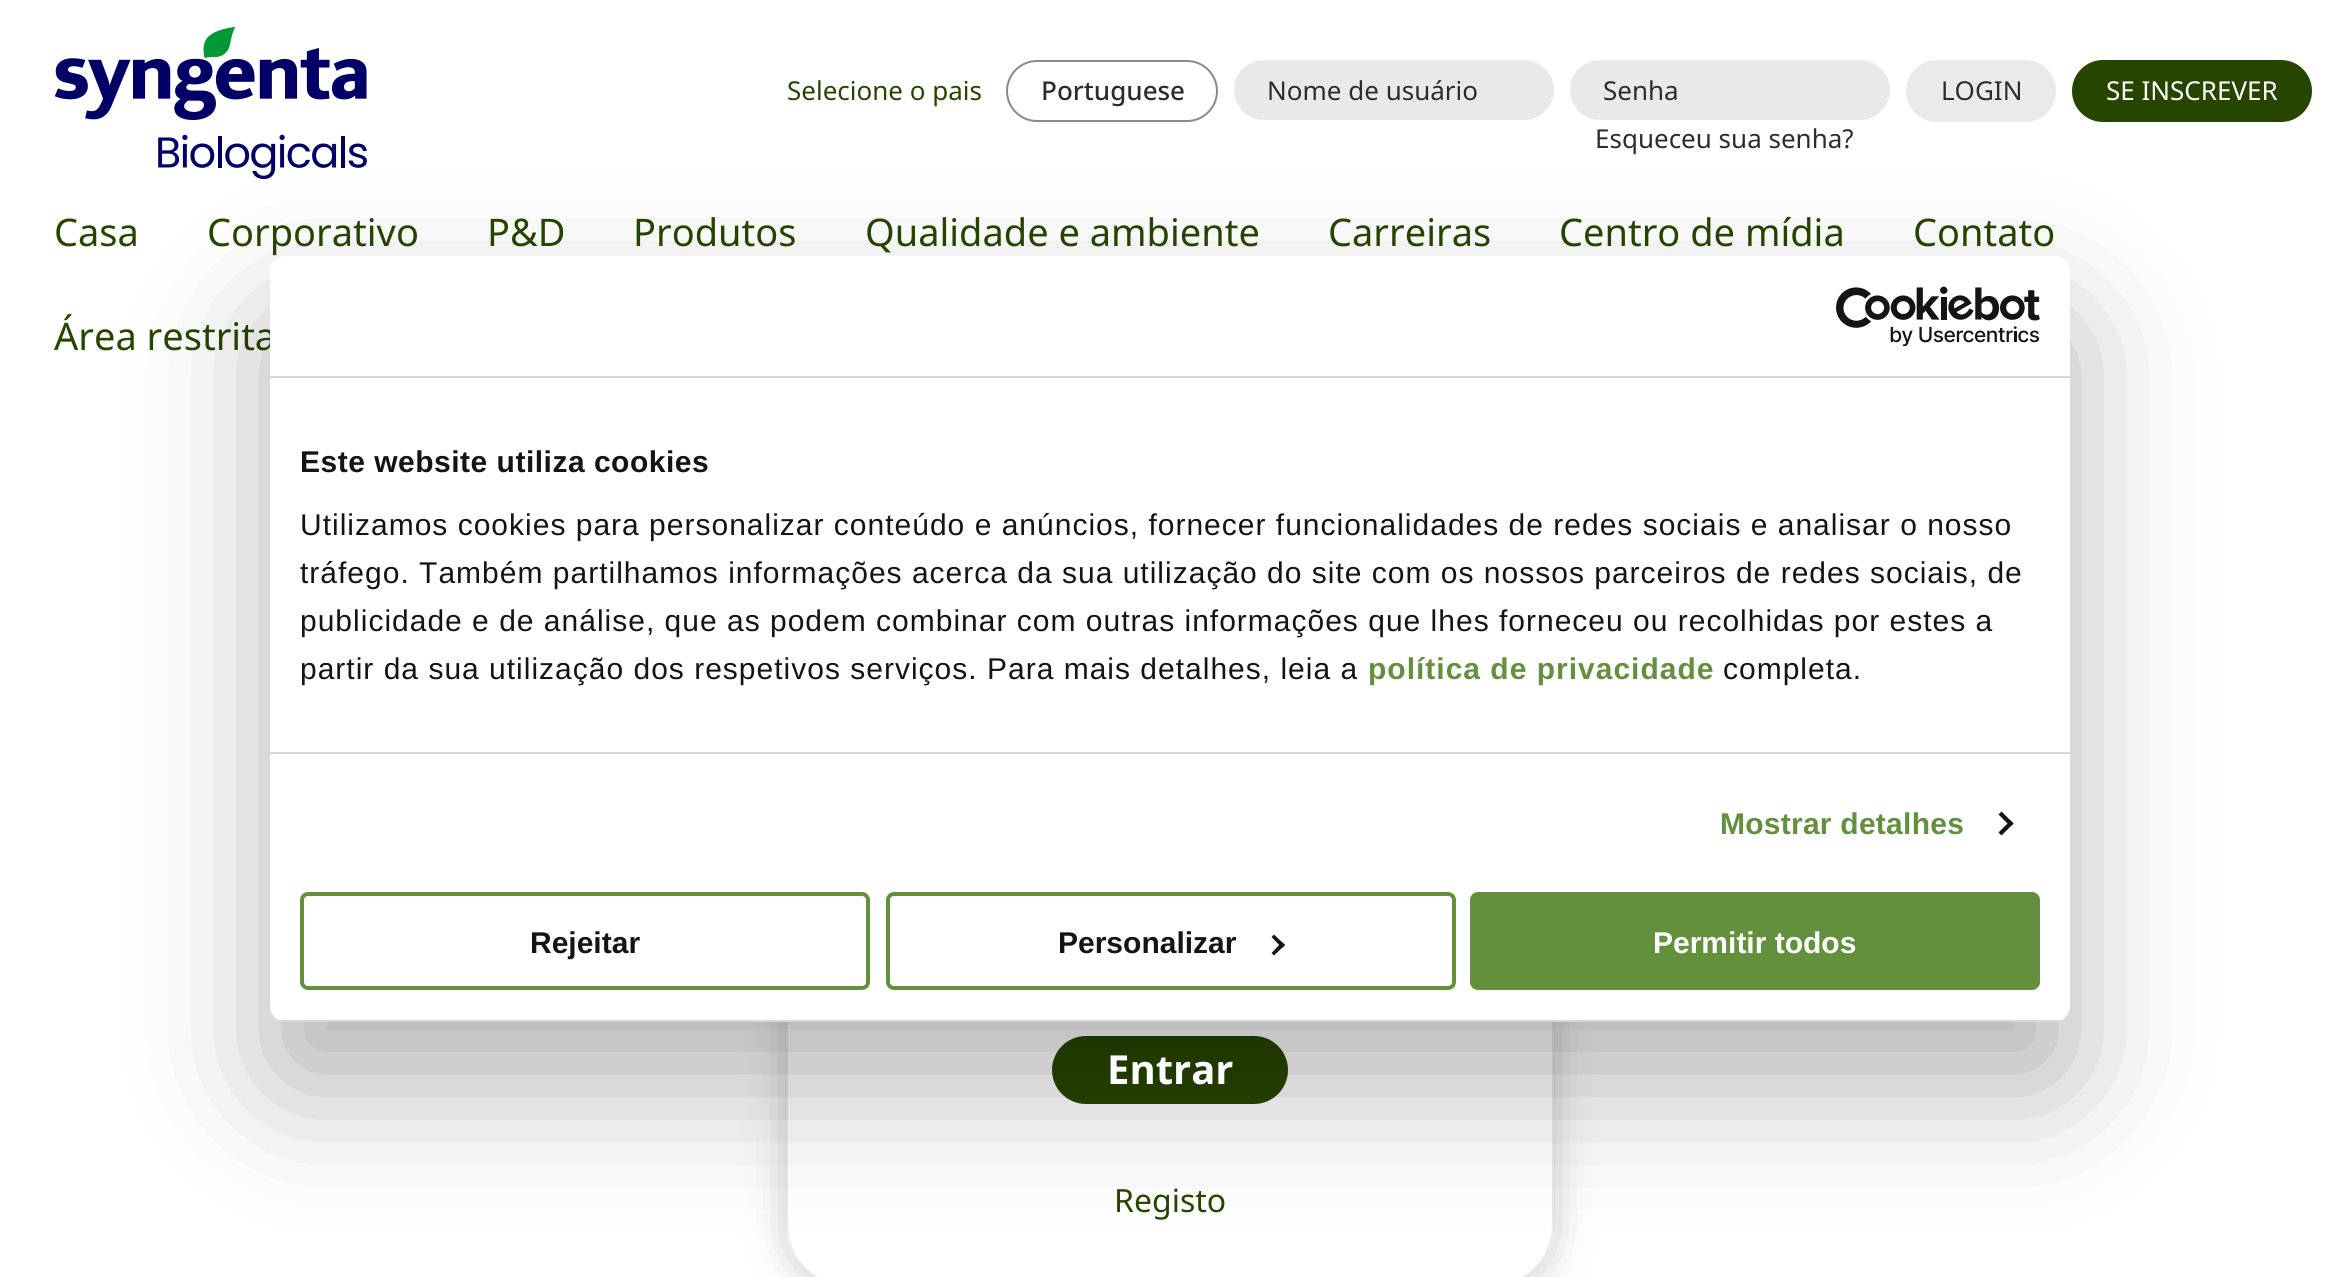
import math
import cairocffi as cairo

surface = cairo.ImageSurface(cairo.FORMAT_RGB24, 2339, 1277)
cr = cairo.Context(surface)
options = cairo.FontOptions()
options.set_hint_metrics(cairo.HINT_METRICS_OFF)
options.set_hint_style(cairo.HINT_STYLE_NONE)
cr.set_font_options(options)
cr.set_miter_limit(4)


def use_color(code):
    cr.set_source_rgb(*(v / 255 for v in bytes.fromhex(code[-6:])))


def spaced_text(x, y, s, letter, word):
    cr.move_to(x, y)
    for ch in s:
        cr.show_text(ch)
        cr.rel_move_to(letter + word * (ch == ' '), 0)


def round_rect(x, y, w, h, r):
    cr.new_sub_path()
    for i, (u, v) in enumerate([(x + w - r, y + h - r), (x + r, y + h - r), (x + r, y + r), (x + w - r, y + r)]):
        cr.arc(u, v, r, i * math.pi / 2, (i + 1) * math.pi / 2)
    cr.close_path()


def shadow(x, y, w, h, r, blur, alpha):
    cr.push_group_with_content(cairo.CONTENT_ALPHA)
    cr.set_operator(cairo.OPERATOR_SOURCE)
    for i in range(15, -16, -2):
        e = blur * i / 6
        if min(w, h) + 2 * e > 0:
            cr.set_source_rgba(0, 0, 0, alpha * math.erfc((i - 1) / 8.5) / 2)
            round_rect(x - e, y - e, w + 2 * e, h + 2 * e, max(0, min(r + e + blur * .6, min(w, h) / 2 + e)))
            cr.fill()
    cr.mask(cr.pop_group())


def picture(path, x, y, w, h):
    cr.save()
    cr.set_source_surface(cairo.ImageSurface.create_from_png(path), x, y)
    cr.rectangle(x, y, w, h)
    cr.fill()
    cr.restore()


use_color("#ffffff")
cr.paint()
picture("img1.png", 54, 26, 313, 154)
cr.select_font_face("Noto Sans")
cr.set_font_size(26)
use_color("#264600")
cr.move_to(787, 100)
cr.show_text("Selecione o pais")
round_rect(1007, 61, 210, 60, 30)
use_color("#8a8a8a")
cr.stroke()
cr.select_font_face("Noto Sans Medium")
use_color("#2c2c2c")
cr.move_to(1041, 100)
cr.show_text("Portuguese")
use_color("#e9e9e9")
round_rect(1234, 60, 320, 60, 30)
cr.fill()
cr.select_font_face("Noto Sans")
use_color("#2c2c2c")
cr.move_to(1267, 100)
cr.show_text("Nome de usuário")
use_color("#e9e9e9")
round_rect(1570, 60, 320, 60, 30)
cr.fill()
use_color("#2c2c2c")
cr.move_to(1603, 100)
cr.show_text("Senha")
cr.move_to(1595, 148)
cr.show_text("Esqueceu sua senha?")
use_color("#eaeaea")
round_rect(1906, 60, 150, 62, 31)
cr.fill()
use_color("#2c2c2c")
cr.move_to(1941, 100)
cr.show_text("LOGIN")
use_color("#264600")
round_rect(2072, 60, 240, 62, 31)
cr.fill()
use_color("#ffffff")
cr.move_to(2106, 100)
cr.show_text("SE INSCREVER")
cr.set_font_size(38)
use_color("#264600")
cr.move_to(54, 246)
cr.show_text("Casa")
cr.move_to(207, 246)
cr.show_text("Corporativo")
cr.move_to(487, 246)
cr.show_text("P&D")
cr.move_to(633, 246)
cr.show_text("Produtos")
cr.move_to(865, 246)
cr.show_text("Qualidade e ambiente")
cr.move_to(1328, 246)
cr.show_text("Carreiras")
cr.move_to(1559, 246)
cr.show_text("Centro de mídia")
cr.move_to(1913, 246)
cr.show_text("Contato")
cr.move_to(54, 350)
cr.show_text("Área restrita")
cr.save()
cr.set_fill_rule(cairo.FILL_RULE_EVEN_ODD)
cr.new_path()
cr.move_to(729, 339)
cr.line_to(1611, 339)
cr.line_to(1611, 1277)
cr.line_to(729, 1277)
cr.close_path()
cr.move_to(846, 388)
cr.line_to(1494, 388)
cr.curve_to(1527, 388, 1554, 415, 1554, 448)
cr.line_to(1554, 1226)
cr.curve_to(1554, 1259, 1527, 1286, 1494, 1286)
cr.line_to(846, 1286)
cr.curve_to(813, 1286, 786, 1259, 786, 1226)
cr.line_to(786, 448)
cr.curve_to(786, 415, 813, 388, 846, 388)
cr.close_path()
cr.clip()
use_color("#a7a7a7")
shadow(796, 406, 748, 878, 50, 22, 1)
cr.restore()
round_rect(787, 389, 766, 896, 59)
use_color("#e9e9e9")
cr.stroke()
use_color("#264600")
round_rect(1052, 1036, 236, 68, 34)
cr.fill()
use_color("#000000")
shadow(270, 320, 1800, 766, 16, 68, 0.3)
use_color("#ffffff")
round_rect(270, 256, 1800, 766, 16)
cr.fill()
use_color("#d6d6d6")
cr.rectangle(270, 376, 1800, 2)
cr.fill()
picture("img2.png", 1836, 286, 204, 60)
cr.rectangle(270, 752, 1800, 2)
cr.fill()
cr.select_font_face("Liberation Sans", cairo.FONT_SLANT_NORMAL, cairo.FONT_WEIGHT_BOLD)
cr.set_font_size(30)
use_color("#141414")
spaced_text(300, 472, "Este website utiliza cookies", 0.5, 0)
cr.select_font_face("Liberation Sans")
spaced_text(300, 535, "Utilizamos cookies para personalizar conteúdo e anúncios, fornecer funcionalidades de redes sociais e analisar o nosso", 1, 0)
spaced_text(300, 583, "tráfego. Também partilhamos informações acerca da sua utilização do site com os nossos parceiros de redes sociais, de", 1, 0)
spaced_text(300, 631, "publicidade e de análise, que as podem combinar com outras informações que lhes forneceu ou recolhidas por estes a", 1, 0)
spaced_text(300, 679, "partir da sua utilização dos respetivos serviços. Para mais detalhes, leia a", 1, 0)
cr.select_font_face("Liberation Sans", cairo.FONT_SLANT_NORMAL, cairo.FONT_WEIGHT_BOLD)
use_color("#63903d")
spaced_text(1368, 679, "política de privacidade", 1, 0)
cr.select_font_face("Liberation Sans")
use_color("#141414")
spaced_text(1723, 679, "completa.", 1, 0)
cr.select_font_face("Liberation Sans", cairo.FONT_SLANT_NORMAL, cairo.FONT_WEIGHT_BOLD)
use_color("#63903d")
spaced_text(1720, 834, "Mostrar detalhes", 0.25, 0)
use_color("#141414")
cr.new_path()
cr.move_to(2001.5, 811.5)
cr.line_to(2013.5, 823.5)
cr.line_to(2010.5, 826.5)
cr.line_to(1998.5, 814.5)
cr.close_path()
cr.fill()
cr.new_path()
cr.move_to(2010.5, 820.5)
cr.line_to(2013.5, 823.5)
cr.line_to(2001.5, 835.5)
cr.line_to(1998.5, 832.5)
cr.close_path()
cr.fill()
cr.save()
round_rect(270, 256, 1800, 766, 16)
cr.clip()
use_color("#d6d6d6")
cr.rectangle(270, 1020, 1800, 2)
cr.fill()
cr.restore()
round_rect(302, 894, 566, 94, 6)
use_color("#63903d")
cr.set_line_width(4)
cr.stroke()
use_color("#141414")
cr.move_to(530, 953)
cr.show_text("Rejeitar")
round_rect(888, 894, 566, 94, 6)
use_color("#63903d")
cr.stroke()
use_color("#141414")
cr.move_to(1058, 953)
cr.show_text("Personalizar")
cr.new_path()
cr.move_to(1274, 934.5)
cr.line_to(1285, 945)
cr.line_to(1282, 948)
cr.line_to(1271.5, 937)
cr.close_path()
cr.fill()
cr.new_path()
cr.move_to(1282, 942)
cr.line_to(1285, 945)
cr.line_to(1274, 955.5)
cr.line_to(1271.5, 953)
cr.close_path()
cr.fill()
use_color("#63903d")
round_rect(1472, 894, 566, 94, 6)
cr.fill_preserve()
cr.stroke()
use_color("#ffffff")
cr.move_to(1653, 953)
cr.show_text("Permitir todos")
cr.select_font_face("Noto Sans", cairo.FONT_SLANT_NORMAL, cairo.FONT_WEIGHT_BOLD)
cr.set_font_size(40)
cr.move_to(1107, 1084)
cr.show_text("Entrar")
cr.select_font_face("Noto Sans")
cr.set_font_size(32)
use_color("#264600")
cr.move_to(1114, 1212)
cr.show_text("Registo")
surface.write_to_png("result.png")
